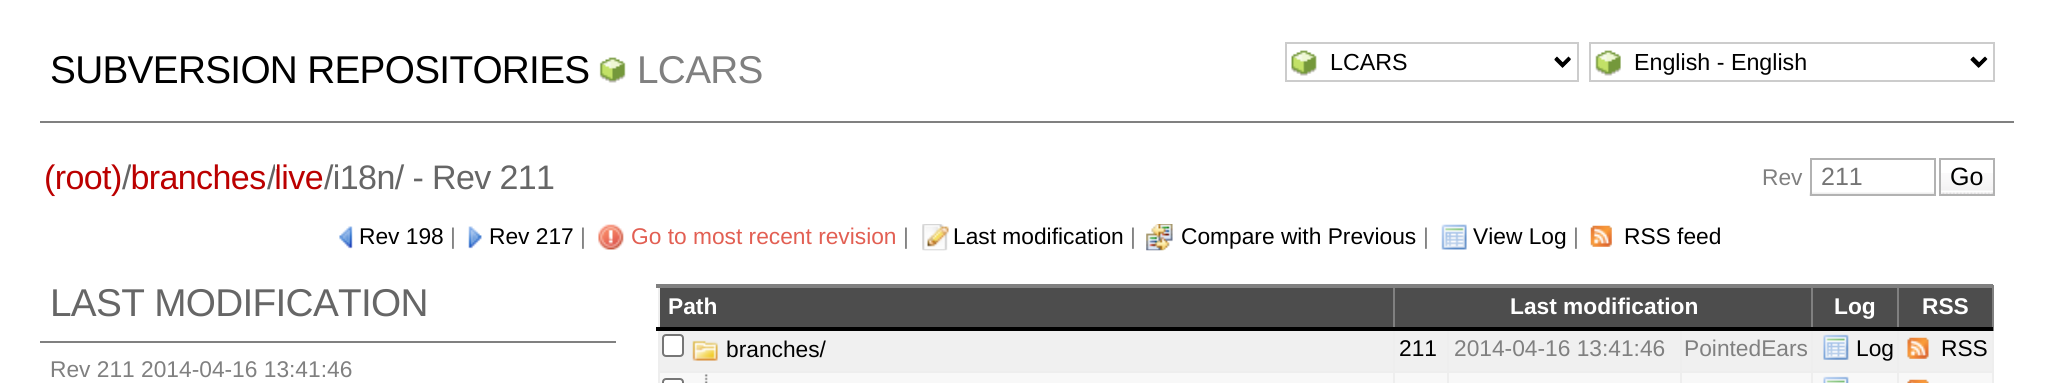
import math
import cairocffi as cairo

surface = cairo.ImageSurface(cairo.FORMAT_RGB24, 2053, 383)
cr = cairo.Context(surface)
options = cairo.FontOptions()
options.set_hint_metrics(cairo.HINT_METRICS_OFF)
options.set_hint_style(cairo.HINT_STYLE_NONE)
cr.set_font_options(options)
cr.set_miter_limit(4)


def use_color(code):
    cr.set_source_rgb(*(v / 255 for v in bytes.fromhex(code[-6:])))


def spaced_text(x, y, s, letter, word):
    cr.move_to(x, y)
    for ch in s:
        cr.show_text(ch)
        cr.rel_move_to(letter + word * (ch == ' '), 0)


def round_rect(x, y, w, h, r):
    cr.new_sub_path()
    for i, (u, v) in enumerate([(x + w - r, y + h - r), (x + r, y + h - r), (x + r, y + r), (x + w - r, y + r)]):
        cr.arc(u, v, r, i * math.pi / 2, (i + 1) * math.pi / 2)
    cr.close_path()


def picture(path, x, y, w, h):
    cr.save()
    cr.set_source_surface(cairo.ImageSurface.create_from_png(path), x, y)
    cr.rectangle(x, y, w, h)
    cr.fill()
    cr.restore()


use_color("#ffffff")
cr.paint()
use_color("#808080")
cr.rectangle(40, 121, 1974, 2)
cr.fill()
cr.select_font_face("Liberation Sans")
cr.set_font_size(38.75)
use_color("#000000")
spaced_text(50, 83, "SUBVERSION REPOSITORIES", -0.7, 0)
picture("img1.png", 599, 57, 27, 26)
use_color("#808080")
spaced_text(637, 83, "LCARS", -0.7, 0)
picture("img2.png", 1291, 50, 280, 26)
cr.rectangle(1286, 43, 292, 38)
use_color("#cccccc")
cr.stroke()
cr.new_path()
cr.move_to(1555.5, 58.5)
cr.line_to(1562.5, 65.5)
cr.line_to(1569.5, 58.5)
use_color("#000000")
cr.set_line_width(3.5)
cr.stroke()
cr.set_font_size(23.25)
cr.move_to(1330, 70)
cr.show_text("LCARS")
picture("img3.png", 1595, 50, 393, 26)
cr.rectangle(1590, 43, 404, 38)
use_color("#cccccc")
cr.set_line_width(2)
cr.stroke()
cr.new_path()
cr.move_to(1971.5, 58.5)
cr.line_to(1978.5, 65.5)
cr.line_to(1985.5, 58.5)
use_color("#000000")
cr.set_line_width(3.5)
cr.stroke()
cr.move_to(1634, 70)
cr.show_text("English - English")
cr.set_font_size(34)
use_color("#bb0000")
spaced_text(44, 189, "(root) branches live", -0.6, 0)
use_color("#666666")
spaced_text(122, 189, "/", -0.6, 0)
use_color("#ffffff")
cr.rectangle(131, 164, 1, 3)
cr.fill()
use_color("#666666")
spaced_text(267, 189, "/", -0.6, 0)
use_color("#ffffff")
cr.rectangle(275, 164, 2, 5)
cr.fill()
use_color("#666666")
spaced_text(324, 189, "/i18n/ - Rev 211", -0.6, 0)
cr.set_font_size(22.75)
use_color("#808080")
cr.move_to(1762, 185)
cr.show_text("Rev")
picture("img4.png", 1809, 192, 125, 4)
cr.rectangle(1811, 159, 124, 36)
use_color("#b2b2b2")
cr.set_line_width(2)
cr.stroke()
cr.set_font_size(25)
use_color("#757575")
cr.move_to(1821, 185)
cr.show_text("211")
picture("img5.png", 1941, 173, 52, 21)
cr.rectangle(1940, 159, 54, 36)
use_color("#b2b2b2")
cr.stroke()
use_color("#000000")
cr.move_to(1950, 185)
cr.show_text("Go")
picture("img6.png", 339, 226, 14, 23)
cr.set_font_size(22.75)
cr.move_to(359, 244)
cr.show_text("Rev 198")
use_color("#808080")
cr.move_to(450, 244)
cr.show_text("|")
picture("img7.png", 468, 226, 14, 23)
use_color("#000000")
cr.move_to(489, 244)
cr.show_text("Rev 217")
use_color("#808080")
cr.move_to(580, 244)
cr.show_text("|")
picture("img8.png", 598, 224, 26, 26)
use_color("#e25f53")
cr.move_to(631, 244)
cr.show_text("Go to most recent revision")
use_color("#808080")
cr.move_to(903, 244)
cr.show_text("|")
picture("img9.png", 922, 224, 27, 27)
use_color("#000000")
cr.move_to(953, 244)
cr.show_text("Last modification")
use_color("#808080")
cr.move_to(1130, 244)
cr.show_text("|")
picture("img10.png", 1146, 224, 27, 27)
use_color("#000000")
cr.move_to(1181, 244)
cr.show_text("Compare with Previous")
use_color("#808080")
cr.move_to(1423, 244)
cr.show_text("|")
picture("img11.png", 1441, 224, 26, 26)
use_color("#000000")
cr.move_to(1473, 244)
cr.show_text("View Log")
use_color("#808080")
cr.move_to(1573, 244)
cr.show_text("|")
picture("img12.png", 1590, 225, 22, 22)
use_color("#000000")
cr.move_to(1624, 244)
cr.show_text("RSS feed")
use_color("#808080")
cr.rectangle(40, 341, 576, 2)
cr.fill()
cr.set_font_size(38.75)
use_color("#666666")
spaced_text(50, 316, "LAST MODIFICATION", -0.7, 0)
cr.set_font_size(22.75)
use_color("#808080")
cr.move_to(50, 377)
cr.show_text("Rev 211 2014-04-16 13:41:46")
use_color("#4d4d4d")
cr.rectangle(660, 288, 1332, 39)
cr.fill()
use_color("#eeeeee")
cr.rectangle(1897, 371, 96, 2)
cr.fill()
cr.rectangle(1897, 371, 2, 12)
cr.fill()
cr.rectangle(1811, 371, 88, 2)
cr.fill()
cr.rectangle(1811, 371, 2, 12)
cr.fill()
cr.rectangle(1680, 371, 133, 2)
cr.fill()
cr.rectangle(1680, 371, 2, 12)
cr.fill()
cr.rectangle(1447, 371, 235, 2)
cr.fill()
cr.rectangle(1447, 371, 2, 12)
cr.fill()
cr.rectangle(1393, 371, 56, 2)
cr.fill()
cr.rectangle(1393, 371, 2, 12)
cr.fill()
cr.rectangle(658, 371, 737, 2)
cr.fill()
cr.rectangle(1393, 329, 2, 44)
cr.fill()
use_color("#808080")
cr.rectangle(1393, 285, 2, 46)
cr.fill()
cr.select_font_face("Liberation Sans", cairo.FONT_SLANT_NORMAL, cairo.FONT_WEIGHT_BOLD)
use_color("#ffffff")
cr.move_to(668, 314)
cr.show_text("Path")
use_color("#eeeeee")
cr.rectangle(1811, 329, 2, 44)
cr.fill()
use_color("#808080")
cr.rectangle(1811, 285, 2, 46)
cr.fill()
use_color("#ffffff")
cr.move_to(1510, 314)
cr.show_text("Last modification")
use_color("#eeeeee")
cr.rectangle(1897, 329, 2, 44)
cr.fill()
use_color("#808080")
cr.rectangle(1897, 285, 2, 46)
cr.fill()
use_color("#ffffff")
cr.move_to(1834, 314)
cr.show_text("Log")
use_color("#eeeeee")
cr.rectangle(1992, 329, 2, 54)
cr.fill()
use_color("#808080")
cr.rectangle(1992, 285, 2, 46)
cr.fill()
use_color("#eeeeee")
cr.rectangle(658, 285, 2, 98)
cr.fill()
use_color("#808080")
cr.rectangle(656, 284, 1337, 4)
cr.fill()
use_color("#eeeeee")
cr.rectangle(1447, 329, 2, 44)
cr.fill()
cr.rectangle(1680, 329, 2, 44)
cr.fill()
use_color("#000000")
cr.rectangle(656, 327, 1337, 4)
cr.fill()
use_color("#ffffff")
cr.move_to(1922, 314)
cr.show_text("RSS")
use_color("#f8f8f8")
cr.rectangle(660, 373, 733, 10)
cr.fill()
use_color("#ffffff")
round_rect(663, 379, 20, 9, 3)
cr.fill_preserve()
use_color("#767676")
cr.stroke()
picture("img13.png", 704, 374, 4, 9)
use_color("#f8f8f8")
cr.rectangle(1395, 373, 52, 10)
cr.fill()
cr.rectangle(1449, 373, 231, 10)
cr.fill()
cr.rectangle(1682, 373, 129, 10)
cr.fill()
cr.rectangle(1813, 373, 84, 10)
cr.fill()
picture("img14.png", 1823, 376, 26, 7)
cr.rectangle(1899, 373, 93, 10)
cr.fill()
picture("img15.png", 1907, 379, 22, 4)
use_color("#f0f0f0")
cr.rectangle(660, 331, 733, 40)
cr.fill()
use_color("#ffffff")
round_rect(663, 335, 20, 21, 3)
cr.fill_preserve()
use_color("#767676")
cr.stroke()
picture("img16.png", 692, 340, 26, 21)
cr.select_font_face("Liberation Sans")
use_color("#000000")
cr.move_to(726, 357)
cr.show_text("branches/")
use_color("#f0f0f0")
cr.rectangle(1395, 331, 52, 40)
cr.fill()
use_color("#000000")
cr.move_to(1399, 356)
cr.show_text("211")
use_color("#f0f0f0")
cr.rectangle(1449, 331, 231, 40)
cr.fill()
use_color("#808080")
cr.move_to(1454, 356)
cr.show_text("2014-04-16 13:41:46")
use_color("#f0f0f0")
cr.rectangle(1682, 331, 129, 40)
cr.fill()
use_color("#808080")
cr.move_to(1684, 356)
cr.show_text("PointedEars")
use_color("#f0f0f0")
cr.rectangle(1813, 331, 84, 40)
cr.fill()
picture("img17.png", 1823, 334, 26, 26)
use_color("#000000")
cr.move_to(1856, 356)
cr.show_text("Log")
use_color("#f0f0f0")
cr.rectangle(1899, 331, 93, 40)
cr.fill()
picture("img18.png", 1907, 337, 22, 22)
use_color("#000000")
cr.move_to(1941, 356)
cr.show_text("RSS")
surface.write_to_png("result.png")
